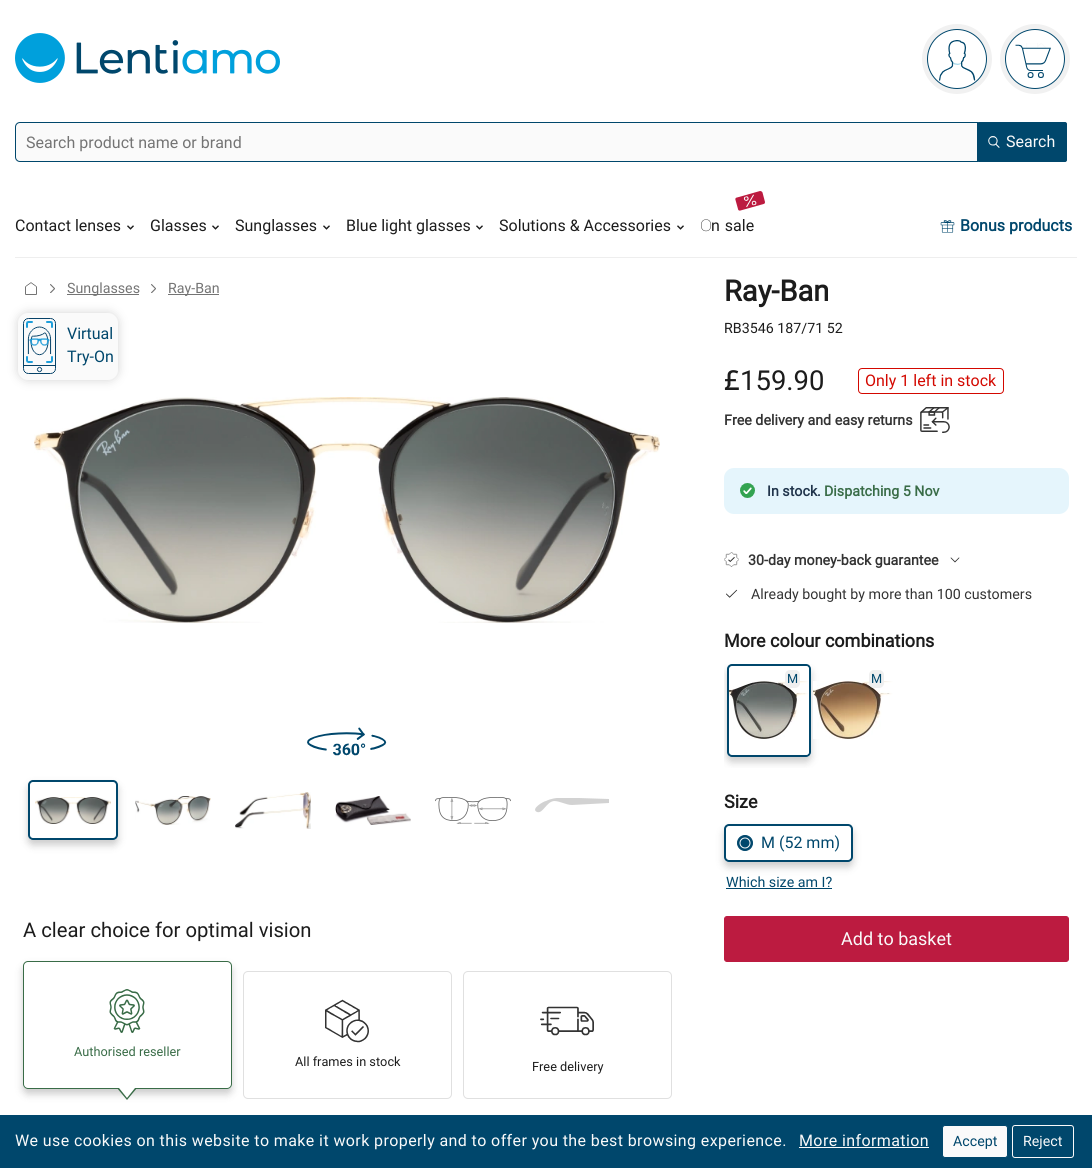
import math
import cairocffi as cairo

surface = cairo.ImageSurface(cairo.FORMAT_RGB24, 1092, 1168)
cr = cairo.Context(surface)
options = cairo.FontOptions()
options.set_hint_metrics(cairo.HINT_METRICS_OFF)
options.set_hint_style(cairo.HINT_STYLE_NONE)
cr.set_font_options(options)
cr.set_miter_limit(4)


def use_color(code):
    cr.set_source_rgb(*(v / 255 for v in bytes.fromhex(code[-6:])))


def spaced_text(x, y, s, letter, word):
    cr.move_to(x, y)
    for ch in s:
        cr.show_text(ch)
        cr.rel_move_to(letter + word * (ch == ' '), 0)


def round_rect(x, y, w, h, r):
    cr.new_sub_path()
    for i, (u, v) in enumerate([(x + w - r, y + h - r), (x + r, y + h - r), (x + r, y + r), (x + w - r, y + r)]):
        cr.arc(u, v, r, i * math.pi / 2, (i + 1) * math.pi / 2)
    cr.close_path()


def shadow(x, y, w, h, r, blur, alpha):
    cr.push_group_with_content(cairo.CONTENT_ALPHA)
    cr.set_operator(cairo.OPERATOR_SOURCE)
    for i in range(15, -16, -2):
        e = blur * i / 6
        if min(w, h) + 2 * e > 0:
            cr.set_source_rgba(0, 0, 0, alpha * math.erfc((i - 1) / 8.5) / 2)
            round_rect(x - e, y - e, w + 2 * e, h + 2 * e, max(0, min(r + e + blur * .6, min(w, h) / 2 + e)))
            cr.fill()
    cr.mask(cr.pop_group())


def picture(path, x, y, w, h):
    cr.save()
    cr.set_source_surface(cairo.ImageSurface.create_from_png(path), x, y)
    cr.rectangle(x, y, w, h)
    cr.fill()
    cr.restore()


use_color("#ffffff")
cr.paint()
picture("img1.png", 15, 33, 265, 50)
cr.arc(957, 59, 32.5, 0, 2 * math.pi)
use_color("#f1f1f1")
cr.set_line_width(5)
cr.stroke()
use_color("#ffffff")
cr.arc(957, 59, 29.5, 0, 2 * math.pi)
cr.fill_preserve()
use_color("#00476c")
cr.set_line_width(1)
cr.stroke()
picture("img2.png", 939, 40, 37, 41)
cr.arc(1035, 59, 32.5, 0, 2 * math.pi)
use_color("#f1f1f1")
cr.set_line_width(5)
cr.stroke()
use_color("#ffffff")
cr.arc(1035, 59, 29.5, 0, 2 * math.pi)
cr.fill_preserve()
use_color("#00476c")
cr.set_line_width(1)
cr.stroke()
picture("img3.png", 1015, 43, 36, 35)
use_color("#fafafa")
round_rect(15, 122, 1052, 40, 2)
cr.fill()
use_color("#00476c")
round_rect(977.5, 122.5, 89, 39, 1.5)
cr.fill_preserve()
cr.stroke()
use_color("#fafafa")
cr.new_path()
cr.move_to(20, 122.5)
cr.line_to(977.5, 122.5)
cr.line_to(977.5, 161.5)
cr.line_to(20, 161.5)
cr.curve_to(17.5, 161.5, 15.5, 159.5, 15.5, 157)
cr.line_to(15.5, 127)
cr.curve_to(15.5, 124.5, 17.5, 122.5, 20, 122.5)
cr.close_path()
cr.fill_preserve()
use_color("#00476c")
cr.stroke()
cr.select_font_face("Roboto")
cr.set_font_size(16)
use_color("#747474")
cr.move_to(26, 148)
cr.show_text("Search product name or brand")
picture("img4.png", 988, 136, 12, 12)
use_color("#fafafa")
cr.move_to(1006, 147)
cr.show_text("Search")
use_color("#eeeeee")
cr.rectangle(15, 257, 1062, 1)
cr.fill()
use_color("#1c1c1c")
cr.move_to(15, 231)
cr.show_text("Contact lenses")
picture("img5.png", 127, 225, 7, 5)
cr.move_to(150, 231)
cr.show_text("Glasses")
picture("img5.png", 212, 225, 7, 5)
cr.move_to(235, 231)
cr.show_text("Sunglasses")
picture("img5.png", 323, 225, 7, 5)
cr.move_to(346, 231)
cr.show_text("Blue light glasses")
picture("img5.png", 476, 225, 7, 5)
cr.move_to(499, 231)
cr.show_text("Solutions & Accessories")
picture("img5.png", 677, 225, 7, 5)
use_color("#bc1b40")
cr.new_path()
cr.move_to(737, 197.5)
cr.line_to(760, 191)
cr.curve_to(761, 191, 762, 191.5, 762.5, 192.5)
cr.line_to(765, 202)
cr.curve_to(765, 203, 764.5, 204, 763.5, 204)
cr.line_to(740.5, 210.5)
cr.curve_to(739, 211, 738, 210, 738, 209)
cr.line_to(735.5, 200)
cr.curve_to(735, 199, 735.5, 197.5, 737, 197.5)
cr.close_path()
cr.fill()
picture("img6.png", 743, 194, 14, 13)
cr.select_font_face("Noto Sans Thin")
use_color("#1c1c1c")
cr.move_to(700, 231)
cr.show_text("O")
cr.select_font_face("Roboto")
spaced_text(711, 231, "n sale", 0, 1)
picture("img7.png", 940, 220, 15, 13)
cr.select_font_face("Roboto", cairo.FONT_SLANT_NORMAL, cairo.FONT_WEIGHT_BOLD)
use_color("#00476c")
cr.move_to(960, 231)
cr.show_text("Bonus products")
picture("img8.png", 25, 282, 12, 13)
picture("img9.png", 50, 284, 5, 9)
use_color("#747474")
cr.rectangle(67, 294, 72, 1)
cr.fill()
cr.select_font_face("Roboto")
cr.set_font_size(14.25)
cr.move_to(67, 293)
cr.show_text("Sunglasses")
picture("img9.png", 151, 284, 5, 9)
cr.rectangle(168, 294, 51, 1)
cr.fill()
cr.move_to(168, 293)
cr.show_text("Ray-Ban")
cr.select_font_face("Roboto", cairo.FONT_SLANT_NORMAL, cairo.FONT_WEIGHT_BOLD)
cr.set_font_size(29)
use_color("#1c1c1c")
cr.move_to(724, 301)
cr.show_text("Ray-Ban")
cr.select_font_face("Roboto")
cr.set_font_size(14.25)
cr.move_to(724, 333)
cr.show_text("RB3546 187/71 52")
use_color("#d3d3d3")
shadow(18, 313, 100, 67, 10, 5, 1)
use_color("#fafafa")
round_rect(18, 313, 100, 67, 10)
cr.fill()
picture("img10.png", 23, 318, 33, 56)
cr.set_font_size(16)
use_color("#00476c")
cr.move_to(67, 339)
cr.show_text("Virtual")
cr.move_to(67, 362)
cr.show_text("Try-On")
cr.save()
cr.set_fill_rule(cairo.FILL_RULE_EVEN_ODD)
cr.new_path()
cr.move_to(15, 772)
cr.line_to(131, 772)
cr.line_to(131, 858)
cr.line_to(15, 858)
cr.close_path()
cr.move_to(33, 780)
cr.line_to(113, 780)
cr.curve_to(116, 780, 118, 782, 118, 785)
cr.line_to(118, 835)
cr.curve_to(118, 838, 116, 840, 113, 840)
cr.line_to(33, 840)
cr.curve_to(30, 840, 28, 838, 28, 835)
cr.line_to(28, 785)
cr.curve_to(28, 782, 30, 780, 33, 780)
cr.close_path()
cr.clip()
use_color("#000000")
shadow(28, 785, 90, 60, 5, 4, 0.2)
cr.restore()
round_rect(29, 781, 88, 58, 4)
cr.set_line_width(2)
cr.stroke()
picture("img11.png", 35, 797, 76, 27)
picture("img12.png", 135, 796, 76, 29)
picture("img13.png", 235, 792, 76, 37)
picture("img14.png", 335, 796, 76, 29)
picture("img15.png", 435, 797, 76, 27)
cr.save()
cr.rectangle(535, 798, 76, 25)
cr.clip()
use_color("#d2d2d2")
cr.new_path()
cr.move_to(609, 799)
cr.line_to(609, 803)
cr.line_to(572, 805)
cr.curve_to(566, 805, 560, 801, 554, 801)
cr.curve_to(546, 802, 543, 814, 537, 812)
cr.curve_to(530, 809, 544, 801, 546, 801)
cr.curve_to(556, 796, 568, 798, 579, 798)
cr.close_path()
cr.fill()
cr.restore()
picture("img16.png", 34, 397, 626, 226)
picture("img17.png", 307, 727, 80, 29)
cr.select_font_face("Noto Sans Medium")
cr.set_font_size(27.5)
use_color("#1c1c1c")
cr.move_to(724, 390)
cr.show_text("£")
cr.select_font_face("Roboto")
cr.move_to(740, 390)
cr.show_text("159.90")
round_rect(858.5, 368.5, 145, 25, 3.5)
use_color("#d30800")
cr.set_line_width(1)
cr.stroke()
cr.set_font_size(16)
cr.move_to(865, 386)
cr.show_text("Only 1 left in stock")
cr.select_font_face("Roboto", cairo.FONT_SLANT_NORMAL, cairo.FONT_WEIGHT_BOLD)
cr.set_font_size(14.25)
use_color("#333333")
cr.move_to(724, 425)
cr.show_text("Free delivery and easy returns")
picture("img18.png", 920, 407, 30, 26)
use_color("#e5f5fc")
round_rect(724, 468, 345, 46, 10)
cr.fill()
picture("img19.png", 740, 483, 15, 15)
use_color("#20344b")
cr.move_to(767, 496)
cr.show_text("In stock.")
use_color("#396c47")
cr.move_to(824, 496)
cr.show_text("Dispatching 5 Nov")
picture("img20.png", 724, 552, 15, 15)
use_color("#333333")
cr.move_to(748, 565)
cr.show_text("30-day money-back guarantee")
picture("img21.png", 950, 557, 10, 6)
picture("img22.png", 726, 589, 12, 9)
cr.select_font_face("Roboto")
cr.move_to(751, 599)
cr.show_text("Already bought by more than 100 customers")
cr.select_font_face("Roboto", cairo.FONT_SLANT_NORMAL, cairo.FONT_WEIGHT_BOLD)
cr.set_font_size(18)
use_color("#1c1c1c")
cr.move_to(724, 647)
cr.show_text("More colour combinations")
cr.save()
cr.rectangle(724, 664, 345, 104)
cr.clip()
cr.set_fill_rule(cairo.FILL_RULE_EVEN_ODD)
cr.new_path()
cr.move_to(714, 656)
cr.line_to(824, 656)
cr.line_to(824, 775)
cr.line_to(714, 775)
cr.close_path()
cr.move_to(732, 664)
cr.line_to(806, 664)
cr.curve_to(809, 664, 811, 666, 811, 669)
cr.line_to(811, 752)
cr.curve_to(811, 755, 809, 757, 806, 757)
cr.line_to(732, 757)
cr.curve_to(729, 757, 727, 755, 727, 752)
cr.line_to(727, 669)
cr.curve_to(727, 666, 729, 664, 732, 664)
cr.close_path()
cr.clip()
use_color("#000000")
shadow(727, 669, 84, 93, 5, 4, 0.2)
cr.restore()
round_rect(728, 665, 82, 91, 4)
use_color("#00476c")
cr.set_line_width(2)
cr.stroke()
picture("img23.png", 729, 681, 80, 58)
gradient = cairo.LinearGradient(798, 711, 809, 711)
gradient.add_color_stop_rgba(0, 1, 1, 1, 0)
gradient.add_color_stop_rgba(1, 1, 1, 1, 1)
cr.set_source(gradient)
cr.new_path()
cr.move_to(798, 666)
cr.line_to(806, 666)
cr.curve_to(807.5, 666, 809, 667.5, 809, 669)
cr.line_to(809, 752)
cr.curve_to(809, 753.5, 807.5, 755, 806, 755)
cr.line_to(798, 755)
cr.close_path()
cr.fill()
use_color("#efefef")
round_rect(785, 670, 15, 18, 5)
cr.fill()
cr.select_font_face("Roboto")
cr.set_font_size(12.75)
use_color("#00476c")
cr.move_to(787, 683)
cr.show_text("M")
picture("img24.png", 813, 681, 80, 58)
gradient = cairo.LinearGradient(882, 711, 893, 711)
gradient.add_color_stop_rgba(0, 1, 1, 1, 0)
gradient.add_color_stop_rgba(1, 1, 1, 1, 1)
cr.set_source(gradient)
cr.new_path()
cr.move_to(882, 666)
cr.line_to(890, 666)
cr.curve_to(891.5, 666, 893, 667.5, 893, 669)
cr.line_to(893, 752)
cr.curve_to(893, 753.5, 891.5, 755, 890, 755)
cr.line_to(882, 755)
cr.close_path()
cr.fill()
use_color("#efefef")
round_rect(869, 670, 15, 18, 5)
cr.fill()
use_color("#00476c")
cr.move_to(871, 683)
cr.show_text("M")
cr.select_font_face("Roboto", cairo.FONT_SLANT_NORMAL, cairo.FONT_WEIGHT_BOLD)
cr.set_font_size(18)
use_color("#1c1c1c")
cr.move_to(724, 808)
cr.show_text("Size")
cr.save()
cr.set_fill_rule(cairo.FILL_RULE_EVEN_ODD)
cr.new_path()
cr.move_to(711, 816)
cr.line_to(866, 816)
cr.line_to(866, 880)
cr.line_to(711, 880)
cr.close_path()
cr.move_to(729, 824)
cr.line_to(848, 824)
cr.curve_to(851, 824, 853, 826, 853, 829)
cr.line_to(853, 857)
cr.curve_to(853, 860, 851, 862, 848, 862)
cr.line_to(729, 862)
cr.curve_to(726, 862, 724, 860, 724, 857)
cr.line_to(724, 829)
cr.curve_to(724, 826, 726, 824, 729, 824)
cr.close_path()
cr.clip()
use_color("#000000")
shadow(724, 829, 129, 38, 5, 4, 0.2)
cr.restore()
round_rect(725, 825, 127, 36, 4)
use_color("#00476c")
cr.stroke()
picture("img25.png", 737, 835, 16, 16)
cr.select_font_face("Roboto")
cr.set_font_size(16)
cr.move_to(761, 848)
cr.show_text("M (52 mm)")
cr.set_font_size(14.25)
cr.move_to(726, 887)
cr.show_text("Which size am I?")
cr.rectangle(726, 888, 106, 1)
cr.fill()
use_color("#bc1b40")
round_rect(724.5, 916.5, 344, 45, 2.5)
cr.fill_preserve()
cr.set_line_width(1)
cr.stroke()
cr.set_font_size(18)
use_color("#fafafa")
cr.move_to(841, 945)
cr.show_text("Add to basket")
cr.set_font_size(20.25)
use_color("#1c1c1c")
cr.move_to(23, 937)
cr.show_text("A clear choice for optimal vision")
cr.save()
cr.set_fill_rule(cairo.FILL_RULE_EVEN_ODD)
cr.new_path()
cr.move_to(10, 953)
cr.line_to(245, 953)
cr.line_to(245, 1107)
cr.line_to(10, 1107)
cr.close_path()
cr.move_to(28, 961)
cr.line_to(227, 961)
cr.curve_to(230, 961, 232, 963, 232, 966)
cr.line_to(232, 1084)
cr.curve_to(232, 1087, 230, 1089, 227, 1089)
cr.line_to(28, 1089)
cr.curve_to(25, 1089, 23, 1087, 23, 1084)
cr.line_to(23, 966)
cr.curve_to(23, 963, 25, 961, 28, 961)
cr.close_path()
cr.clip()
use_color("#000000")
shadow(23, 966, 209, 128, 5, 4, 0.2)
cr.restore()
round_rect(23.5, 961.5, 208, 127, 4.5)
use_color("#396c47")
cr.stroke()
picture("img26.png", 109, 989, 36, 44)
cr.set_font_size(12.75)
cr.move_to(74, 1056)
cr.show_text("Authorised reseller")
cr.new_path()
cr.move_to(117, 1088)
cr.line_to(137, 1088)
cr.line_to(127, 1100)
cr.close_path()
cr.fill()
use_color("#ffffff")
cr.new_path()
cr.move_to(119, 1088)
cr.line_to(135, 1088)
cr.line_to(127, 1098)
cr.close_path()
cr.fill()
round_rect(243.5, 971.5, 208, 127, 4.5)
use_color("#e0e0e0")
cr.stroke()
picture("img27.png", 325, 999, 44, 44)
use_color("#1c1c1c")
cr.move_to(295, 1066)
cr.show_text("All frames in stock")
round_rect(463.5, 971.5, 208, 127, 4.5)
use_color("#e0e0e0")
cr.stroke()
picture("img28.png", 540, 1006, 54, 30)
use_color("#1c1c1c")
cr.move_to(532, 1071)
cr.show_text("Free delivery")
use_color("#00476c")
cr.rectangle(0, 1115, 1092, 53)
cr.fill()
cr.set_font_size(16)
use_color("#fafafa")
spaced_text(15, 1146, "We use cookies on this website to make it work properly and to offer you the best browsing experience.", 0.4, 0)
spaced_text(799, 1146, "More information", 0.4, 0)
cr.rectangle(799, 1147, 130, 1)
cr.fill()
round_rect(942.5, 1125.5, 65, 32, 2.5)
cr.fill_preserve()
use_color("#00476c")
cr.stroke()
cr.set_font_size(14.25)
cr.move_to(953, 1146)
cr.show_text("Accept")
round_rect(1012.5, 1125.5, 61, 32, 2.5)
use_color("#fafafa")
cr.stroke()
cr.move_to(1023, 1146)
cr.show_text("Reject")
surface.write_to_png("result.png")
